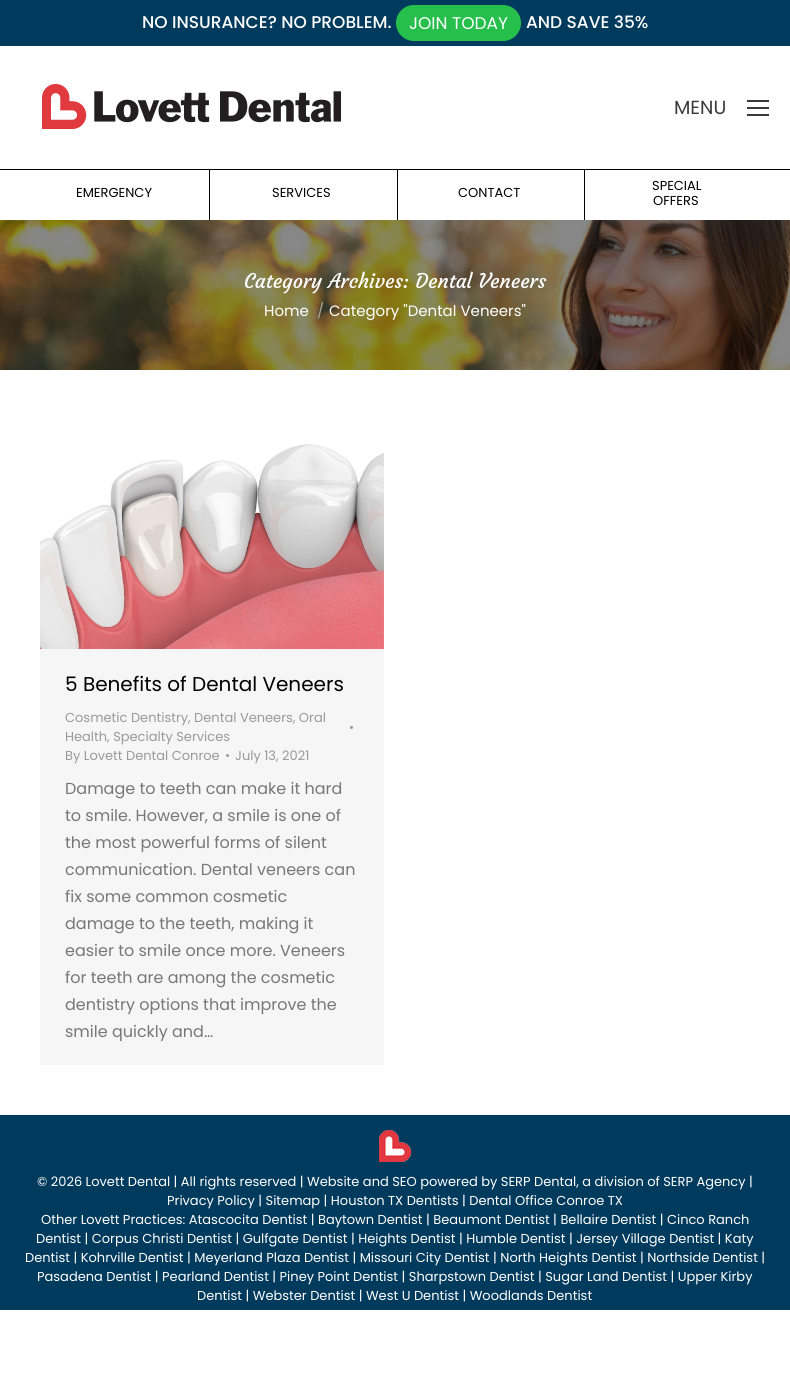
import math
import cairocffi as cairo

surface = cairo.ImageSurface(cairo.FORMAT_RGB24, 790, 1387)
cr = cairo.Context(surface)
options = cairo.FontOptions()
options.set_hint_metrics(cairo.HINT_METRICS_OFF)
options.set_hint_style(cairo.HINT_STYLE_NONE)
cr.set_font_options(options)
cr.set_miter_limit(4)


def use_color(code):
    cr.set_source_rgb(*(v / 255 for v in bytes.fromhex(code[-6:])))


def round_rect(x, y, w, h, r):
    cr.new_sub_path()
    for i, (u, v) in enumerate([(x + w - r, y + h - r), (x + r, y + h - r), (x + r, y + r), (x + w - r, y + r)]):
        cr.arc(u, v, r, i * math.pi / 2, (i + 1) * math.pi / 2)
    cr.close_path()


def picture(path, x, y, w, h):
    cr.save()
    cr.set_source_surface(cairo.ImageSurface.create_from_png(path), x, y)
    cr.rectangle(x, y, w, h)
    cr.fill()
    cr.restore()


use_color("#ffffff")
cr.paint()
use_color("#003a5d")
cr.rectangle(0, 0, 790, 46)
cr.fill()
cr.select_font_face("Poppins Medium")
cr.set_font_size(17)
use_color("#ffffff")
cr.move_to(142, 28)
cr.show_text("NO INSURANCE? NO PROBLEM.")
use_color("#26bf4c")
round_rect(396, 5, 125, 36, 18)
cr.fill()
cr.select_font_face("Poppins")
use_color("#ffffff")
cr.move_to(409, 29)
cr.show_text("JOIN TODAY")
cr.select_font_face("Poppins Medium")
cr.move_to(526, 28)
cr.show_text("AND SAVE 35%")
picture("img1.png", 42, 84, 299, 45)
cr.select_font_face("Poppins")
cr.set_font_size(19)
use_color("#3a3a3a")
cr.move_to(674, 114)
cr.show_text("MENU")
cr.rectangle(747, 100, 22, 2)
cr.fill()
cr.rectangle(747, 107, 22, 2)
cr.fill()
cr.rectangle(747, 114, 22, 2)
cr.fill()
use_color("#000000")
cr.rectangle(0, 169, 790, 1)
cr.fill()
cr.set_font_size(13)
cr.move_to(76, 197)
cr.show_text("EMERGENCY")
cr.rectangle(209, 170, 1, 50)
cr.fill()
cr.move_to(272, 197)
cr.show_text("SERVICES")
cr.rectangle(397, 170, 1, 50)
cr.fill()
cr.move_to(458, 197)
cr.show_text("CONTACT")
cr.rectangle(584, 170, 1, 50)
cr.fill()
cr.move_to(652, 190)
cr.show_text("SPECIAL")
cr.move_to(653, 205)
cr.show_text("OFFERS")
picture("img2.png", 0, 220, 790, 150)
cr.select_font_face("Courgette")
cr.set_font_size(20)
use_color("#ffffff")
cr.move_to(244, 288)
cr.show_text("Category Archives: Dental Veneers")
cr.select_font_face("Poppins")
cr.set_font_size(15)
cr.move_to(264, 316)
cr.show_text("Home")
use_color("#a9a396")
cr.move_to(317, 316)
cr.show_text("/")
use_color("#ffffff")
cr.move_to(329, 316)
cr.show_text("Category \"Dental Veneers\"")
use_color("#f6f6f6")
cr.rectangle(40, 420, 344, 645)
cr.fill()
picture("img3.png", 40, 420, 344, 229)
cr.set_font_size(20)
use_color("#000000")
cr.move_to(65, 691)
cr.show_text("5 Benefits of Dental Veneers")
cr.set_font_size(13)
use_color("#999999")
cr.move_to(65, 722)
cr.show_text("Cosmetic Dentistry, Dental Veneers, Oral")
cr.new_path()
cr.arc(351.5, 727.5, 1.5, 0, 2 * math.pi)
cr.fill()
cr.move_to(65, 741)
cr.show_text("Health, Specialty Services")
cr.move_to(65, 760)
cr.show_text("By Lovett Dental Conroe")
cr.new_path()
cr.arc(227.5, 755.5, 1.5, 0, 2 * math.pi)
cr.fill()
cr.move_to(235, 760)
cr.show_text("July 13, 2021")
cr.set_font_size(16)
use_color("#777777")
cr.move_to(65, 794)
cr.show_text("Damage to teeth can make it hard")
cr.move_to(65, 821)
cr.show_text("to smile. However, a smile is one of")
cr.move_to(65, 848)
cr.show_text("the most powerful forms of silent")
cr.move_to(65, 875)
cr.show_text("communication. Dental veneers can")
cr.move_to(65, 902)
cr.show_text("fix some common cosmetic")
cr.move_to(65, 929)
cr.show_text("damage to the teeth, making it")
cr.move_to(65, 956)
cr.show_text("easier to smile once more. Veneers")
cr.move_to(65, 983)
cr.show_text("for teeth are among the cosmetic")
cr.move_to(65, 1010)
cr.show_text("dentistry options that improve the")
cr.move_to(65, 1037)
cr.show_text("smile quickly and…")
use_color("#003a5d")
cr.rectangle(0, 1115, 790, 195)
cr.fill()
picture("img4.png", 379, 1130, 32, 32)
cr.set_font_size(13)
use_color("#ffffff")
cr.move_to(37, 1186)
cr.show_text("© 2026 Lovett Dental | All rights reserved | Website and SEO powered by SERP Dental, a division of SERP Agency |")
cr.move_to(167, 1205)
cr.show_text("Privacy Policy | Sitemap | Houston TX Dentists | Dental Office Conroe TX")
cr.move_to(41, 1224)
cr.show_text("Other Lovett Practices: Atascocita Dentist | Baytown Dentist | Beaumont Dentist | Bellaire Dentist | Cinco Ranch")
cr.move_to(36, 1243)
cr.show_text("Dentist | Corpus Christi Dentist | Gulfgate Dentist | Heights Dentist | Humble Dentist | Jersey Village Dentist | Katy")
cr.move_to(25, 1262)
cr.show_text("Dentist | Kohrville Dentist | Meyerland Plaza Dentist | Missouri City Dentist | North Heights Dentist | Northside Dentist |")
cr.move_to(37, 1281)
cr.show_text("Pasadena Dentist | Pearland Dentist | Piney Point Dentist | Sharpstown Dentist | Sugar Land Dentist | Upper Kirby")
cr.move_to(197, 1300)
cr.show_text("Dentist | Webster Dentist | West U Dentist | Woodlands Dentist")
surface.write_to_png("result.png")
